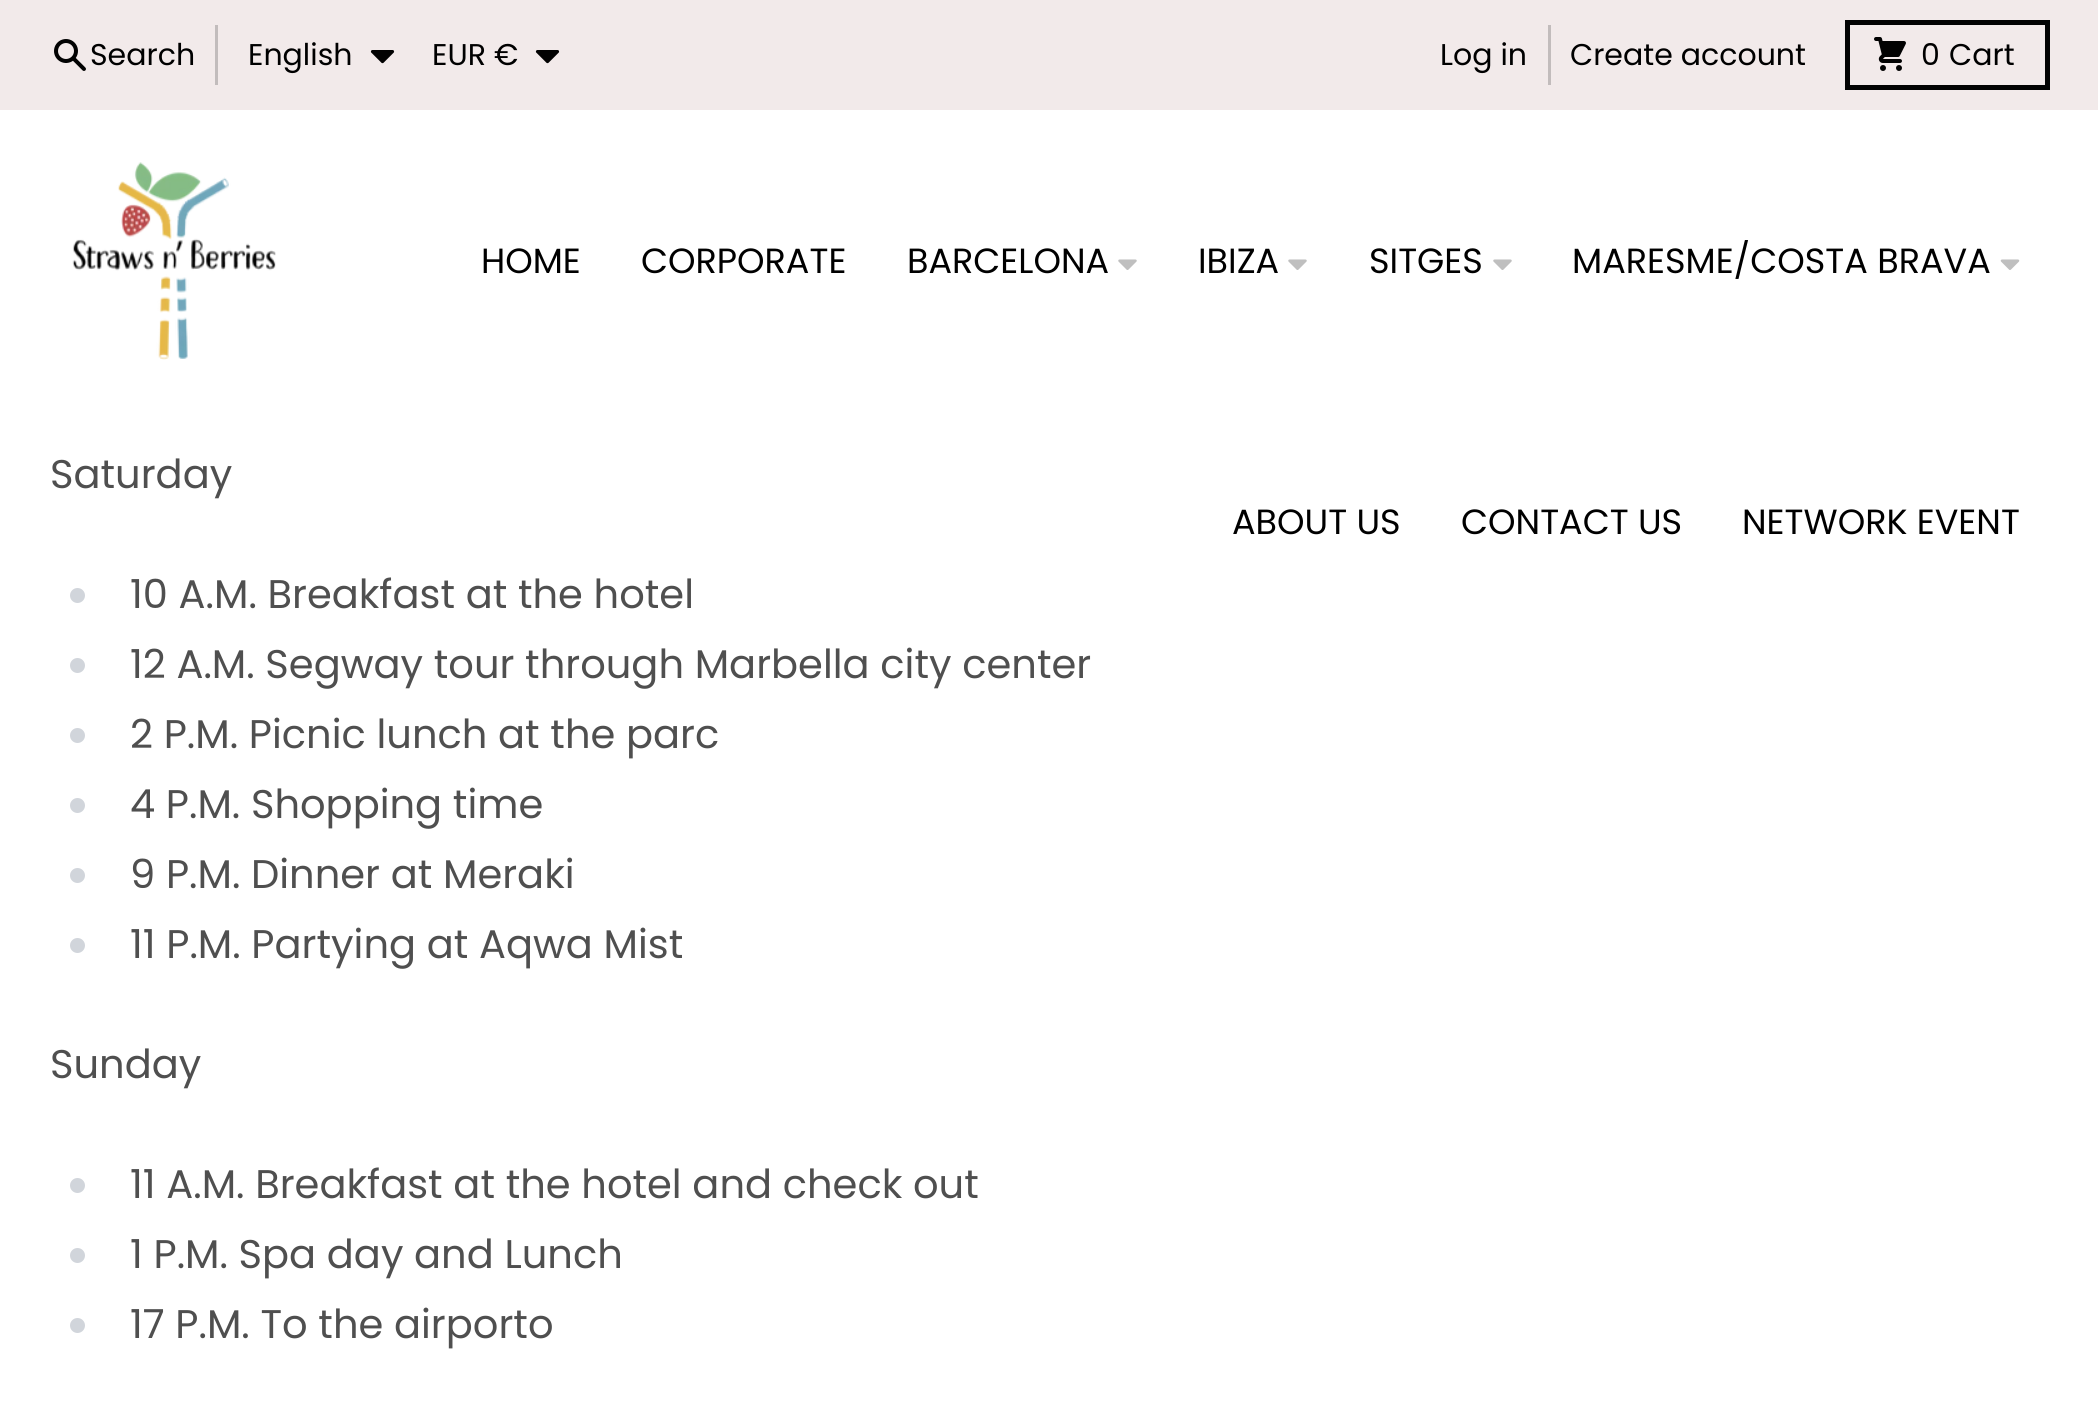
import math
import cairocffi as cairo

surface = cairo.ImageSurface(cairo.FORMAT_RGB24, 2098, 1403)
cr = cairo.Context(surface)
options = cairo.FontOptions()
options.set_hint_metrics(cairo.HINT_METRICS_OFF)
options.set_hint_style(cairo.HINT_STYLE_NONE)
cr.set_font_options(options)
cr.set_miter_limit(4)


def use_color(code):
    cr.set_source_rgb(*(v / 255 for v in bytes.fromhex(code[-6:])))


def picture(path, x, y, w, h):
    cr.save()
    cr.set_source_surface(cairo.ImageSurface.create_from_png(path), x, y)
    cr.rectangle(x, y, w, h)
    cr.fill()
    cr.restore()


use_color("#ffffff")
cr.paint()
use_color("#f2eaea")
cr.rectangle(0, 0, 2098, 110)
cr.fill()
picture("img1.png", 54, 39, 32, 32)
cr.select_font_face("Poppins")
cr.set_font_size(30)
use_color("#000000")
cr.move_to(90, 65)
cr.show_text("Search")
use_color("#c2bcbc")
cr.rectangle(215, 25, 3, 60)
cr.fill()
use_color("#000000")
cr.move_to(248, 65)
cr.show_text("English")
picture("img2.png", 370, 50, 25, 14)
cr.move_to(432, 65)
cr.show_text("EUR €")
picture("img2.png", 535, 50, 25, 14)
cr.move_to(1440, 65)
cr.show_text("Log in")
use_color("#c2bcbc")
cr.rectangle(1548, 25, 3, 60)
cr.fill()
use_color("#000000")
cr.move_to(1570, 65)
cr.show_text("Create account")
cr.rectangle(1847.5, 22.5, 200, 65)
use_color("#020202")
cr.set_line_width(5)
cr.stroke()
picture("img3.png", 1874, 37, 32, 34)
use_color("#000000")
cr.move_to(1921, 65)
cr.show_text("0")
cr.move_to(1949, 65)
cr.show_text("Cart")
picture("img4.png", 72, 162, 204, 198)
cr.set_font_size(35)
cr.move_to(481, 273)
cr.show_text("HOME")
cr.move_to(641, 273)
cr.show_text("CORPORATE")
cr.move_to(907, 273)
cr.show_text("BARCELONA")
picture("img5.png", 1118, 259, 19, 11)
cr.move_to(1198, 273)
cr.show_text("IBIZA")
picture("img5.png", 1288, 259, 19, 11)
cr.move_to(1369, 273)
cr.show_text("SITGES")
picture("img5.png", 1493, 259, 19, 11)
cr.move_to(1572, 273)
cr.show_text("MARESME/COSTA BRAVA")
picture("img6.png", 2000, 259, 20, 11)
cr.move_to(1232, 534)
cr.show_text("ABOUT US")
cr.move_to(1461, 534)
cr.show_text("CONTACT US")
cr.move_to(1742, 534)
cr.show_text("NETWORK EVENT")
cr.set_font_size(40)
use_color("#4f4f4f")
cr.move_to(50, 488)
cr.show_text("Saturday")
use_color("#d1d5db")
cr.new_path()
cr.arc(77.5, 595.5, 7.5, 0, 2 * math.pi)
cr.fill()
use_color("#4f4f4f")
cr.move_to(130, 608)
cr.show_text("10 A.M. Breakfast at the hotel")
use_color("#d1d5db")
cr.new_path()
cr.arc(77.5, 665.5, 7.5, 0, 2 * math.pi)
cr.fill()
use_color("#4f4f4f")
cr.move_to(130, 678)
cr.show_text("12 A.M. Segway tour through Marbella city center")
use_color("#d1d5db")
cr.new_path()
cr.arc(77.5, 735.5, 7.5, 0, 2 * math.pi)
cr.fill()
use_color("#4f4f4f")
cr.move_to(130, 748)
cr.show_text("2 P.M. Picnic lunch at the parc")
use_color("#d1d5db")
cr.new_path()
cr.arc(77.5, 805.5, 7.5, 0, 2 * math.pi)
cr.fill()
use_color("#4f4f4f")
cr.move_to(130, 818)
cr.show_text("4 P.M. Shopping time")
use_color("#d1d5db")
cr.new_path()
cr.arc(77.5, 875.5, 7.5, 0, 2 * math.pi)
cr.fill()
use_color("#4f4f4f")
cr.move_to(130, 888)
cr.show_text("9 P.M. Dinner at Meraki")
use_color("#d1d5db")
cr.new_path()
cr.arc(77.5, 945.5, 7.5, 0, 2 * math.pi)
cr.fill()
use_color("#4f4f4f")
cr.move_to(130, 958)
cr.show_text("11 P.M. Partying at Aqwa Mist")
cr.move_to(50, 1078)
cr.show_text("Sunday")
use_color("#d1d5db")
cr.new_path()
cr.arc(77.5, 1185.5, 7.5, 0, 2 * math.pi)
cr.fill()
use_color("#4f4f4f")
cr.move_to(130, 1198)
cr.show_text("11 A.M. Breakfast at the hotel and check out")
use_color("#d1d5db")
cr.new_path()
cr.arc(77.5, 1255.5, 7.5, 0, 2 * math.pi)
cr.fill()
use_color("#4f4f4f")
cr.move_to(130, 1268)
cr.show_text("1 P.M. Spa day and Lunch")
use_color("#d1d5db")
cr.new_path()
cr.arc(77.5, 1325.5, 7.5, 0, 2 * math.pi)
cr.fill()
use_color("#4f4f4f")
cr.move_to(130, 1338)
cr.show_text("17 P.M. To the airporto")
surface.write_to_png("result.png")
